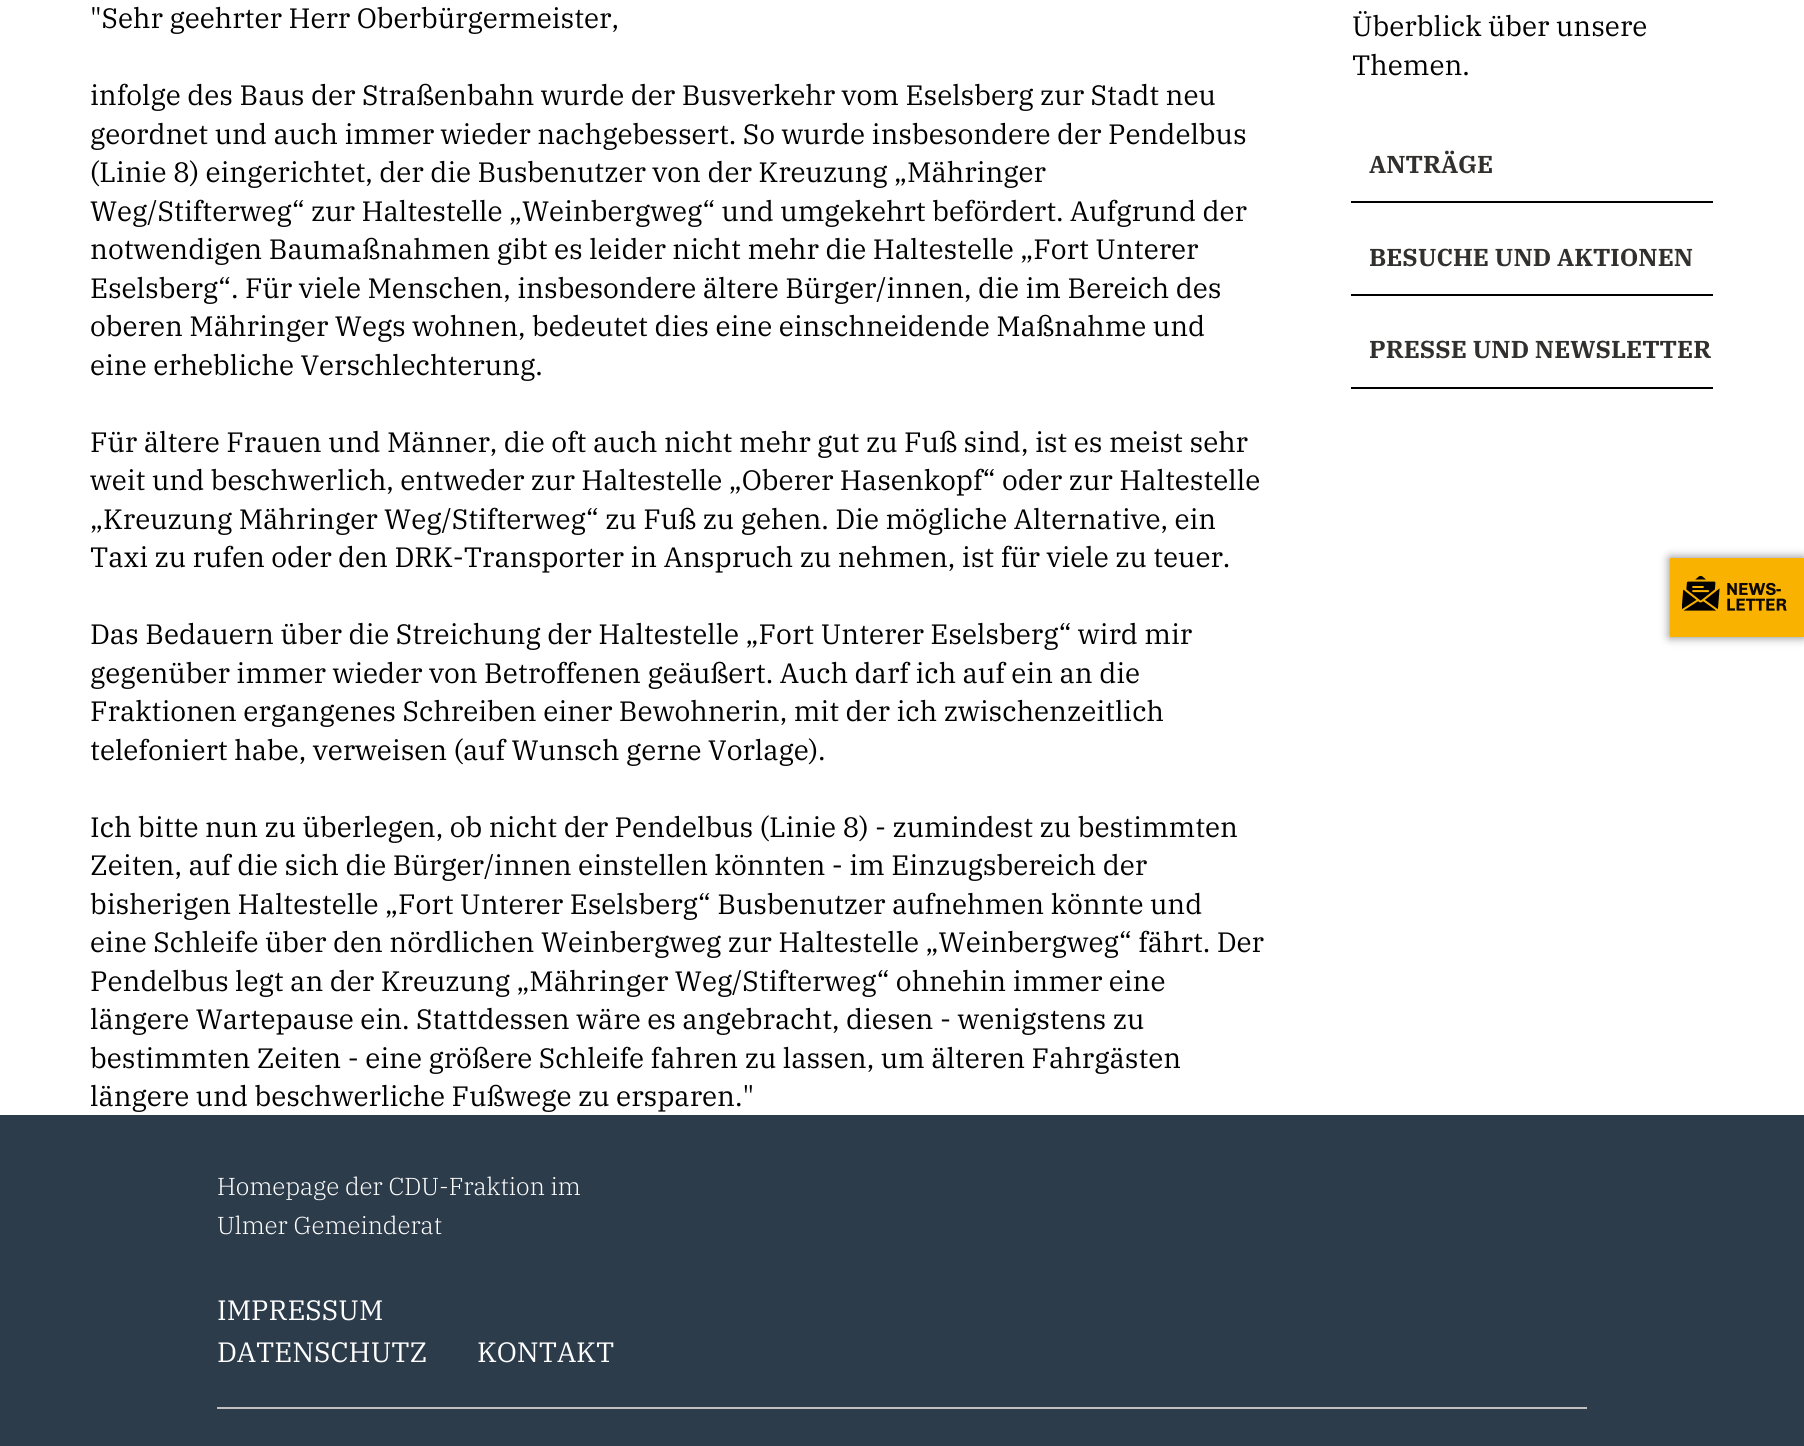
import math
import cairocffi as cairo

surface = cairo.ImageSurface(cairo.FORMAT_RGB24, 1804, 1446)
cr = cairo.Context(surface)
options = cairo.FontOptions()
options.set_hint_metrics(cairo.HINT_METRICS_OFF)
options.set_hint_style(cairo.HINT_STYLE_NONE)
cr.set_font_options(options)
cr.set_miter_limit(4)


def use_color(code):
    cr.set_source_rgb(*(v / 255 for v in bytes.fromhex(code[-6:])))


def round_rect(x, y, w, h, r):
    cr.new_sub_path()
    for i, (u, v) in enumerate([(x + w - r, y + h - r), (x + r, y + h - r), (x + r, y + r), (x + w - r, y + r)]):
        cr.arc(u, v, r, i * math.pi / 2, (i + 1) * math.pi / 2)
    cr.close_path()


def shadow(x, y, w, h, r, blur, alpha):
    cr.push_group_with_content(cairo.CONTENT_ALPHA)
    cr.set_operator(cairo.OPERATOR_SOURCE)
    for i in range(15, -16, -2):
        e = blur * i / 6
        if min(w, h) + 2 * e > 0:
            cr.set_source_rgba(0, 0, 0, alpha * math.erfc((i - 1) / 8.5) / 2)
            round_rect(x - e, y - e, w + 2 * e, h + 2 * e, max(0, min(r + e + blur * .6, min(w, h) / 2 + e)))
            cr.fill()
    cr.mask(cr.pop_group())


def picture(path, x, y, w, h):
    cr.save()
    cr.set_source_surface(cairo.ImageSurface.create_from_png(path), x, y)
    cr.rectangle(x, y, w, h)
    cr.fill()
    cr.restore()


use_color("#ffffff")
cr.paint()
cr.select_font_face("IBM Plex Serif")
cr.set_font_size(28)
use_color("#000000")
cr.move_to(90, 28)
cr.show_text("\"Sehr geehrter Herr Oberbürgermeister,")
cr.move_to(90, 105)
cr.show_text("infolge des Baus der Straßenbahn wurde der Busverkehr vom Eselsberg zur Stadt neu")
cr.move_to(90, 144)
cr.show_text("geordnet und auch immer wieder nachgebessert. So wurde insbesondere der Pendelbus")
cr.move_to(90, 182)
cr.show_text("(Linie 8) eingerichtet, der die Busbenutzer von der Kreuzung „Mähringer")
cr.move_to(90, 221)
cr.show_text("Weg/Stifterweg“ zur Haltestelle „Weinbergweg“ und umgekehrt befördert. Aufgrund der")
cr.move_to(90, 259)
cr.show_text("notwendigen Baumaßnahmen gibt es leider nicht mehr die Haltestelle „Fort Unterer")
cr.move_to(90, 298)
cr.show_text("Eselsberg“. Für viele Menschen, insbesondere ältere Bürger/innen, die im Bereich des")
cr.move_to(90, 336)
cr.show_text("oberen Mähringer Wegs wohnen, bedeutet dies eine einschneidende Maßnahme und")
cr.move_to(90, 375)
cr.show_text("eine erhebliche Verschlechterung.")
cr.move_to(90, 452)
cr.show_text("Für ältere Frauen und Männer, die oft auch nicht mehr gut zu Fuß sind, ist es meist sehr")
cr.move_to(90, 490)
cr.show_text("weit und beschwerlich, entweder zur Haltestelle „Oberer Hasenkopf“ oder zur Haltestelle")
cr.move_to(90, 529)
cr.show_text("„Kreuzung Mähringer Weg/Stifterweg“ zu Fuß zu gehen. Die mögliche Alternative, ein")
cr.move_to(90, 567)
cr.show_text("Taxi zu rufen oder den DRK-Transporter in Anspruch zu nehmen, ist für viele zu teuer.")
cr.move_to(90, 644)
cr.show_text("Das Bedauern über die Streichung der Haltestelle „Fort Unterer Eselsberg“ wird mir")
cr.move_to(90, 683)
cr.show_text("gegenüber immer wieder von Betroffenen geäußert. Auch darf ich auf ein an die")
cr.move_to(90, 721)
cr.show_text("Fraktionen ergangenes Schreiben einer Bewohnerin, mit der ich zwischenzeitlich")
cr.move_to(90, 760)
cr.show_text("telefoniert habe, verweisen (auf Wunsch gerne Vorlage).")
cr.move_to(90, 837)
cr.show_text("Ich bitte nun zu überlegen, ob nicht der Pendelbus (Linie 8) - zumindest zu bestimmten")
cr.move_to(90, 875)
cr.show_text("Zeiten, auf die sich die Bürger/innen einstellen könnten - im Einzugsbereich der")
cr.move_to(90, 914)
cr.show_text("bisherigen Haltestelle „Fort Unterer Eselsberg“ Busbenutzer aufnehmen könnte und")
cr.move_to(90, 952)
cr.show_text("eine Schleife über den nördlichen Weinbergweg zur Haltestelle „Weinbergweg“ fährt. Der")
cr.move_to(90, 991)
cr.show_text("Pendelbus legt an der Kreuzung „Mähringer Weg/Stifterweg“ ohnehin immer eine")
cr.move_to(90, 1029)
cr.show_text("längere Wartepause ein. Stattdessen wäre es angebracht, diesen - wenigstens zu")
cr.move_to(90, 1068)
cr.show_text("bestimmten Zeiten - eine größere Schleife fahren zu lassen, um älteren Fahrgästen")
cr.move_to(90, 1106)
cr.show_text("längere und beschwerliche Fußwege zu ersparen.\"")
cr.move_to(1352, 36)
cr.show_text("Überblick über unsere")
cr.move_to(1352, 75)
cr.show_text("Themen.")
cr.rectangle(1351, 201, 362, 2)
cr.fill()
cr.select_font_face("IBM Plex Serif", cairo.FONT_SLANT_NORMAL, cairo.FONT_WEIGHT_BOLD)
cr.set_font_size(24.5)
use_color("#32302e")
cr.move_to(1369, 173)
cr.show_text("ANTRÄGE")
use_color("#000000")
cr.rectangle(1351, 294, 362, 2)
cr.fill()
use_color("#32302e")
cr.move_to(1369, 266)
cr.show_text("BESUCHE UND AKTIONEN")
use_color("#000000")
cr.rectangle(1351, 387, 362, 2)
cr.fill()
use_color("#32302e")
cr.move_to(1369, 358)
cr.show_text("PRESSE UND NEWSLETTER")
use_color("#000000")
shadow(1670, 558, 134, 79, 0, 5, 0.5)
use_color("#fab200")
cr.rectangle(1670, 558, 134, 79)
cr.fill()
picture("img1.png", 1682, 576, 105, 35)
use_color("#2d3c4b")
cr.rectangle(0, 1115, 1804, 331)
cr.fill()
cr.select_font_face("IBM Plex Serif Light")
use_color("#ffffff")
cr.move_to(217, 1195)
cr.show_text("Homepage der CDU-Fraktion im")
cr.move_to(217, 1234)
cr.show_text("Ulmer Gemeinderat")
cr.select_font_face("IBM Plex Serif")
cr.set_font_size(28)
cr.move_to(217, 1320)
cr.show_text("IMPRESSUM")
cr.move_to(217, 1362)
cr.show_text("DATENSCHUTZ")
cr.move_to(477, 1362)
cr.show_text("KONTAKT")
use_color("#c0c0c0")
cr.rectangle(217, 1407, 1370, 2)
cr.fill()
surface.write_to_png("result.png")
